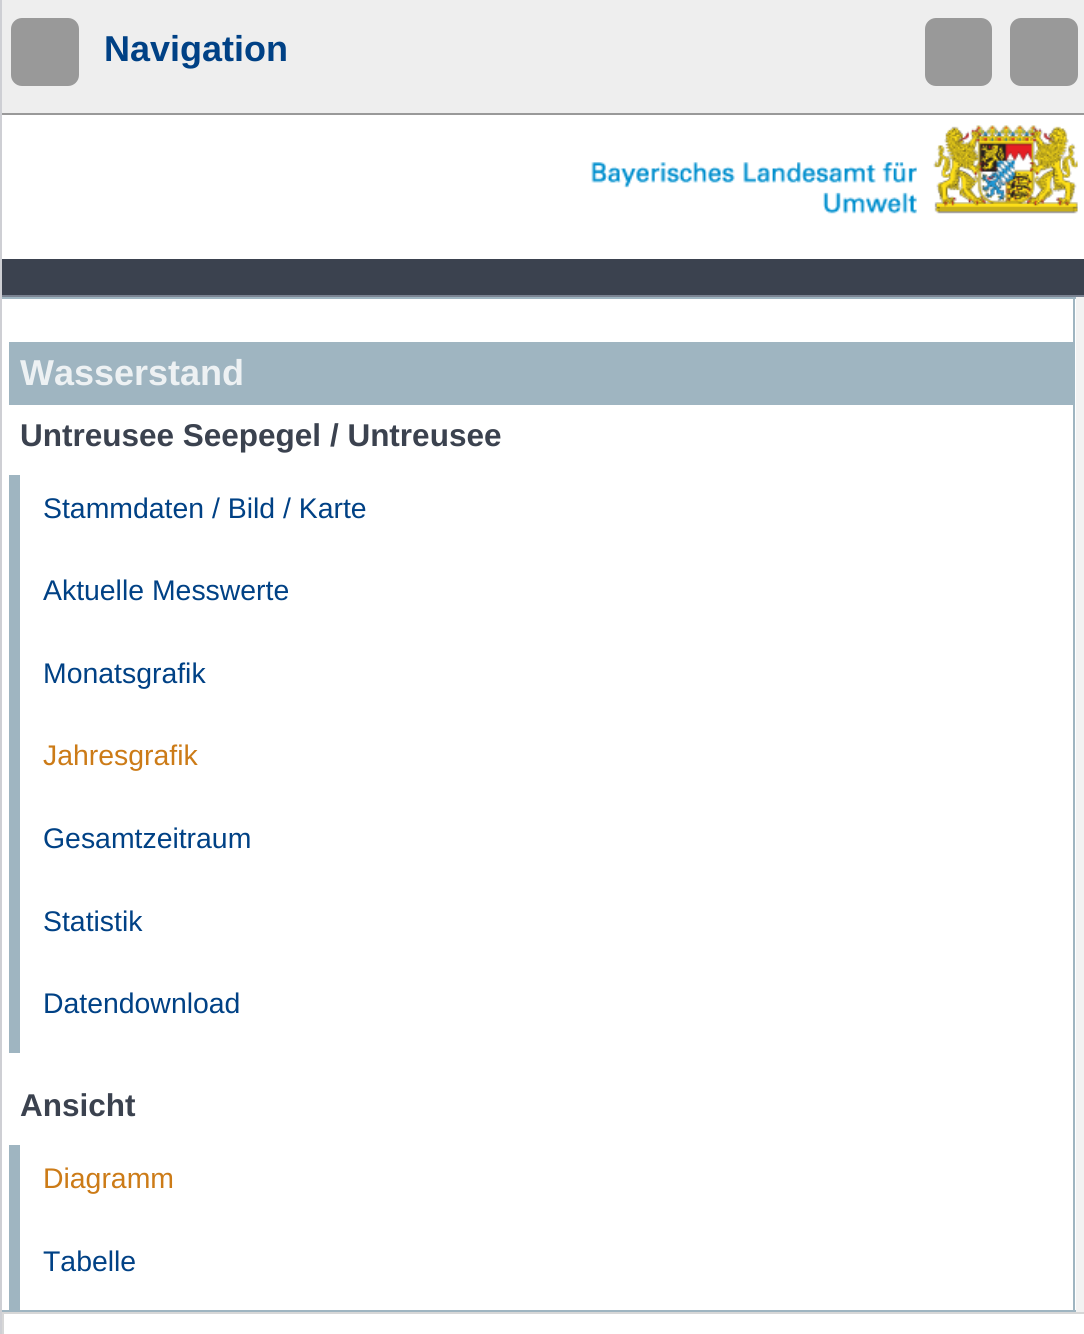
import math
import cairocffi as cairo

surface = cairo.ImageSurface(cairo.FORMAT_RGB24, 1084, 1334)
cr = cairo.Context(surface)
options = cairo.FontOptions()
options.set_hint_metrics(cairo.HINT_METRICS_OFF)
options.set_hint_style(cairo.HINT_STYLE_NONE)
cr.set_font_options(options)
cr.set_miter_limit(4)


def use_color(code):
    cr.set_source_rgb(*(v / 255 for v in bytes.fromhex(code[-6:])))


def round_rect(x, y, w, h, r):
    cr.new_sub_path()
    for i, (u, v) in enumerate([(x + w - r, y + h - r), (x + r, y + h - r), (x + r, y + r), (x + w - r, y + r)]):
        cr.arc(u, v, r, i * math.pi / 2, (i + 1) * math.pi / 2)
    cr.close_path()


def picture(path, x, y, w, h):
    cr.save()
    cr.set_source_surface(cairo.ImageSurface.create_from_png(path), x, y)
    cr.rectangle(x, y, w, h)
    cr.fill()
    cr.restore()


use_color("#ffffff")
cr.paint()
use_color("#cecfd4")
cr.rectangle(0, 0, 2, 1334)
cr.fill()
use_color("#eeeeee")
cr.rectangle(2, 0, 1082, 113)
cr.fill()
use_color("#999999")
cr.rectangle(2, 113, 1082, 2)
cr.fill()
round_rect(11, 18, 68, 68, 11)
cr.fill()
cr.select_font_face("Liberation Sans", cairo.FONT_SLANT_NORMAL, cairo.FONT_WEIGHT_BOLD)
cr.set_font_size(36)
use_color("#004185")
cr.move_to(104, 61)
cr.show_text("Navigation")
use_color("#999999")
round_rect(925, 18, 67, 68, 11)
cr.fill()
round_rect(1010, 18, 68, 68, 11)
cr.fill()
picture("img1.png", 591, 125, 487, 89)
use_color("#3b424f")
cr.rectangle(2, 259, 1082, 36)
cr.fill()
use_color("#7a8291")
cr.rectangle(2, 295, 1082, 2)
cr.fill()
use_color("#f2f2f2")
cr.rectangle(1076, 297, 8, 1015)
cr.fill()
use_color("#9fb5c1")
cr.rectangle(2, 297, 1074, 2)
cr.fill()
cr.rectangle(1073, 297, 2, 1015)
cr.fill()
cr.rectangle(2, 1310, 1074, 2)
cr.fill()
cr.rectangle(9, 342, 1064, 63)
cr.fill()
use_color("#edf1f3")
cr.move_to(20, 385)
cr.show_text("Wasserstand")
cr.set_font_size(31.5)
use_color("#3b424f")
cr.move_to(20, 446)
cr.show_text("Untreusee Seepegel / Untreusee")
use_color("#9fb5c1")
cr.rectangle(9, 475, 11, 578)
cr.fill()
cr.select_font_face("Liberation Sans")
cr.set_font_size(28.4)
use_color("#004185")
cr.move_to(43, 518)
cr.show_text("Stammdaten / Bild / Karte")
cr.move_to(43, 600)
cr.show_text("Aktuelle Messwerte")
cr.move_to(43, 683)
cr.show_text("Monatsgrafik")
use_color("#cc7b17")
cr.move_to(43, 765)
cr.show_text("Jahresgrafik")
use_color("#004185")
cr.move_to(43, 848)
cr.show_text("Gesamtzeitraum")
cr.move_to(43, 931)
cr.show_text("Statistik")
cr.move_to(43, 1013)
cr.show_text("Datendownload")
cr.select_font_face("Liberation Sans", cairo.FONT_SLANT_NORMAL, cairo.FONT_WEIGHT_BOLD)
cr.set_font_size(31.5)
use_color("#3b424f")
cr.move_to(20, 1116)
cr.show_text("Ansicht")
use_color("#9fb5c1")
cr.rectangle(9, 1145, 11, 165)
cr.fill()
cr.select_font_face("Liberation Sans")
cr.set_font_size(28.4)
use_color("#cc7b17")
cr.move_to(43, 1188)
cr.show_text("Diagramm")
use_color("#004185")
cr.move_to(43, 1271)
cr.show_text("Tabelle")
cr.rectangle(3, 1313, 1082, 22)
use_color("#d7d7d7")
cr.stroke()
surface.write_to_png("result.png")
